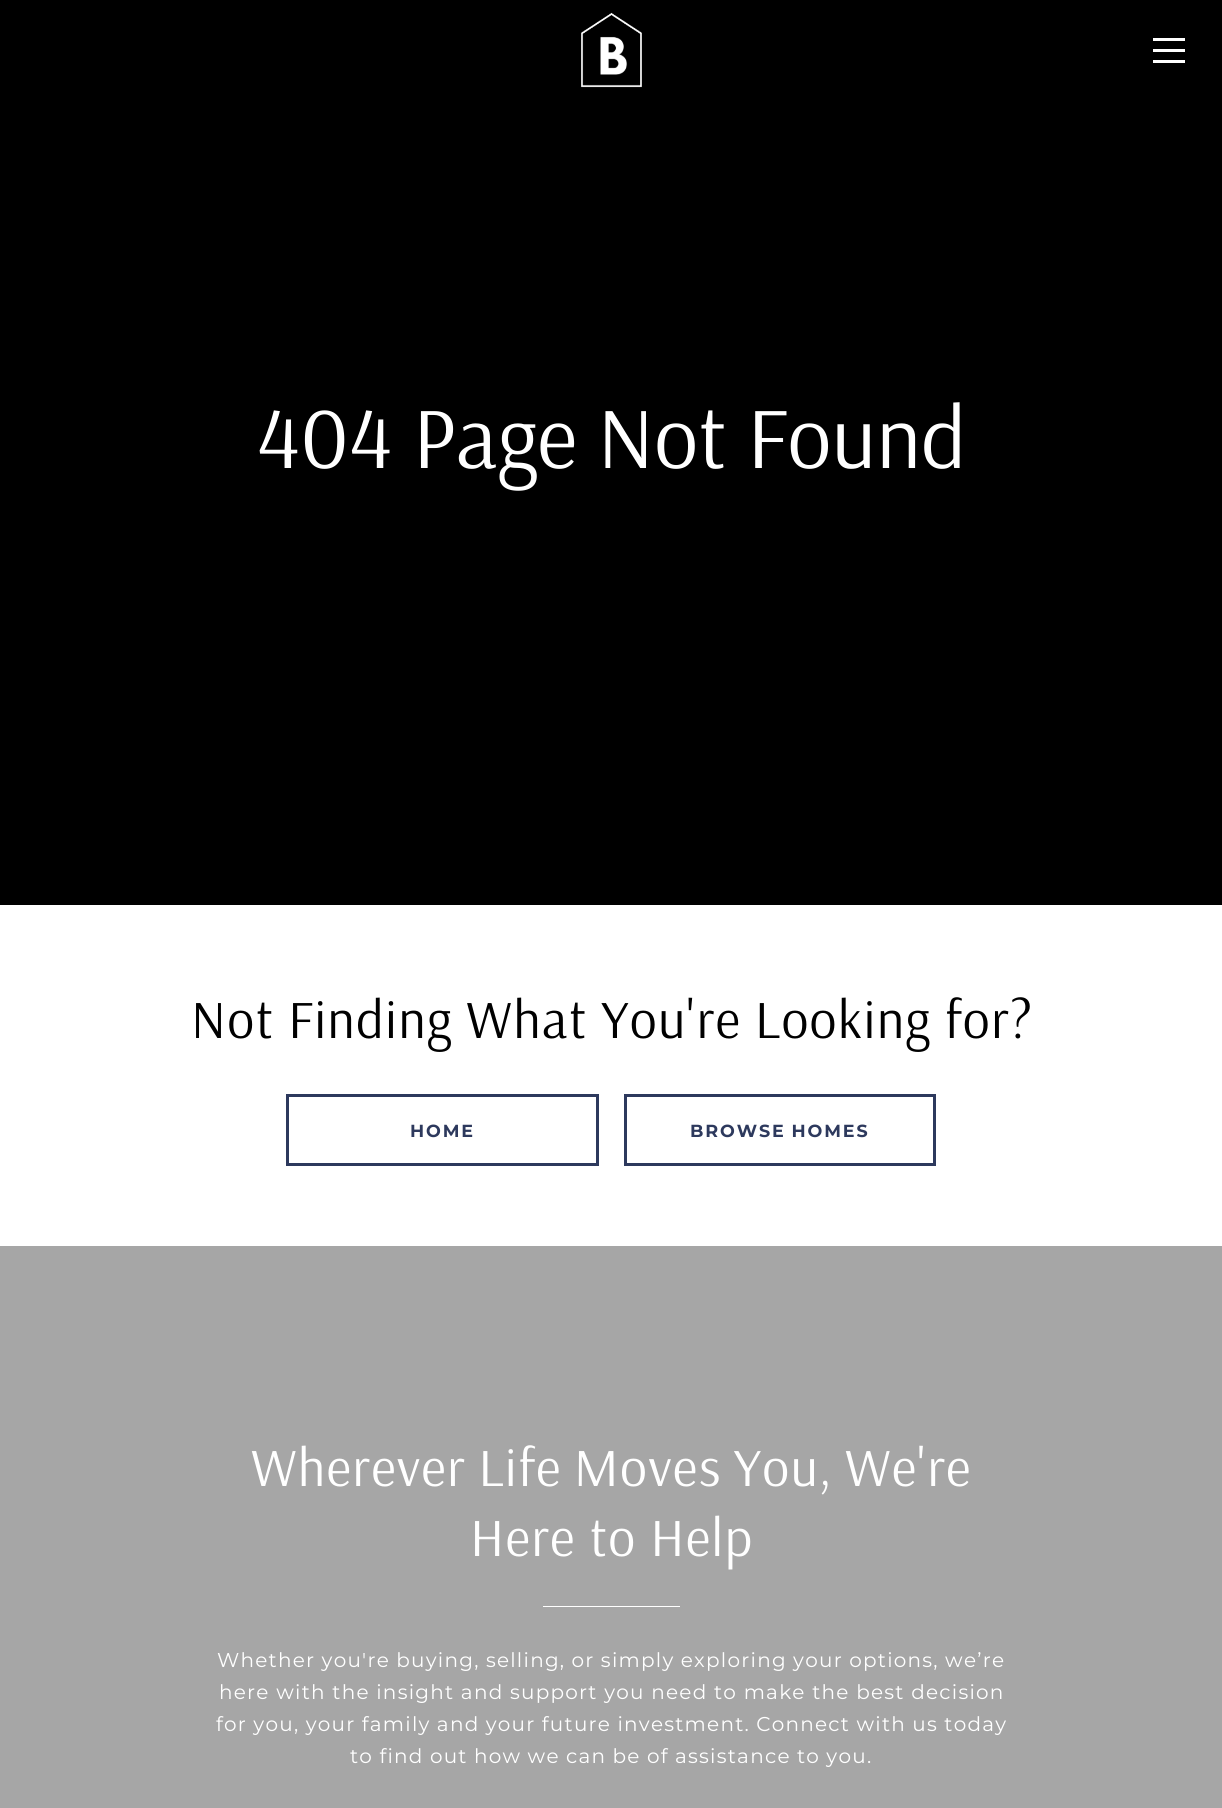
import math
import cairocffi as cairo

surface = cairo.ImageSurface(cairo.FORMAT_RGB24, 1222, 1808)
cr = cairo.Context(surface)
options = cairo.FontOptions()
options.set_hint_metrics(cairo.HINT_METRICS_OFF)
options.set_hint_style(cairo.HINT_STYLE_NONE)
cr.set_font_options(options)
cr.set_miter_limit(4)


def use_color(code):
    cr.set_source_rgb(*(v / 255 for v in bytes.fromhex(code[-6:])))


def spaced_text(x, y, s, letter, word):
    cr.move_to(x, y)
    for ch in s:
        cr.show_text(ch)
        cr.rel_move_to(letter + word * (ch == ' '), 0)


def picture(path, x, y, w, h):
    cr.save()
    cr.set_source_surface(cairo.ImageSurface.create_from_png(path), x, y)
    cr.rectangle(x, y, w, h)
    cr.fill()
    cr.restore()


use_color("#ffffff")
cr.paint()
use_color("#000000")
cr.rectangle(0, 0, 1222, 905)
cr.fill()
picture("img1.png", 581, 12, 61, 76)
use_color("#ffffff")
cr.rectangle(1153, 49, 32, 3)
cr.fill()
cr.rectangle(1153, 38, 32, 3)
cr.fill()
cr.rectangle(1153, 60, 32, 3)
cr.fill()
cr.select_font_face("Arsenal")
cr.set_font_size(87.5)
cr.move_to(257, 468)
cr.show_text("404 Page Not Found")
cr.set_font_size(53.75)
use_color("#000000")
spaced_text(191, 1038, "Not Finding What You're Looking for?", 1.25, 0)
cr.rectangle(287.5, 1095.5, 310, 69)
use_color("#2d395d")
cr.set_line_width(3)
cr.stroke()
cr.select_font_face("Montserrat", cairo.FONT_SLANT_NORMAL, cairo.FONT_WEIGHT_BOLD)
cr.set_font_size(17.5)
spaced_text(410, 1137, "HOME", 1.9, 0)
cr.rectangle(625.5, 1095.5, 309, 69)
cr.stroke()
spaced_text(690, 1137, "BROWSE HOMES", 1.9, -1)
use_color("#a6a6a6")
cr.rectangle(0, 1246, 1222, 562)
cr.fill()
cr.select_font_face("Arsenal")
cr.set_font_size(53.75)
use_color("#ffffff")
spaced_text(251, 1486, "Wherever Life Moves You, We're", 1.25, -1.5)
spaced_text(470, 1556, "Here to Help", 1.25, 0)
cr.rectangle(543, 1606, 137, 1)
cr.fill()
cr.select_font_face("Montserrat")
cr.set_font_size(20)
spaced_text(217, 1667, "Whether you're buying, selling, or simply exploring your options, we’re", 1.25, -0.25)
spaced_text(219, 1699, "here with the insight and support you need to make the best decision", 1.25, 0)
spaced_text(216, 1731, "for you, your family and your future investment. Connect with us today", 1.25, -0.25)
spaced_text(350, 1763, "to find out how we can be of assistance to you.", 1.25, -0.25)
surface.write_to_png("result.png")
